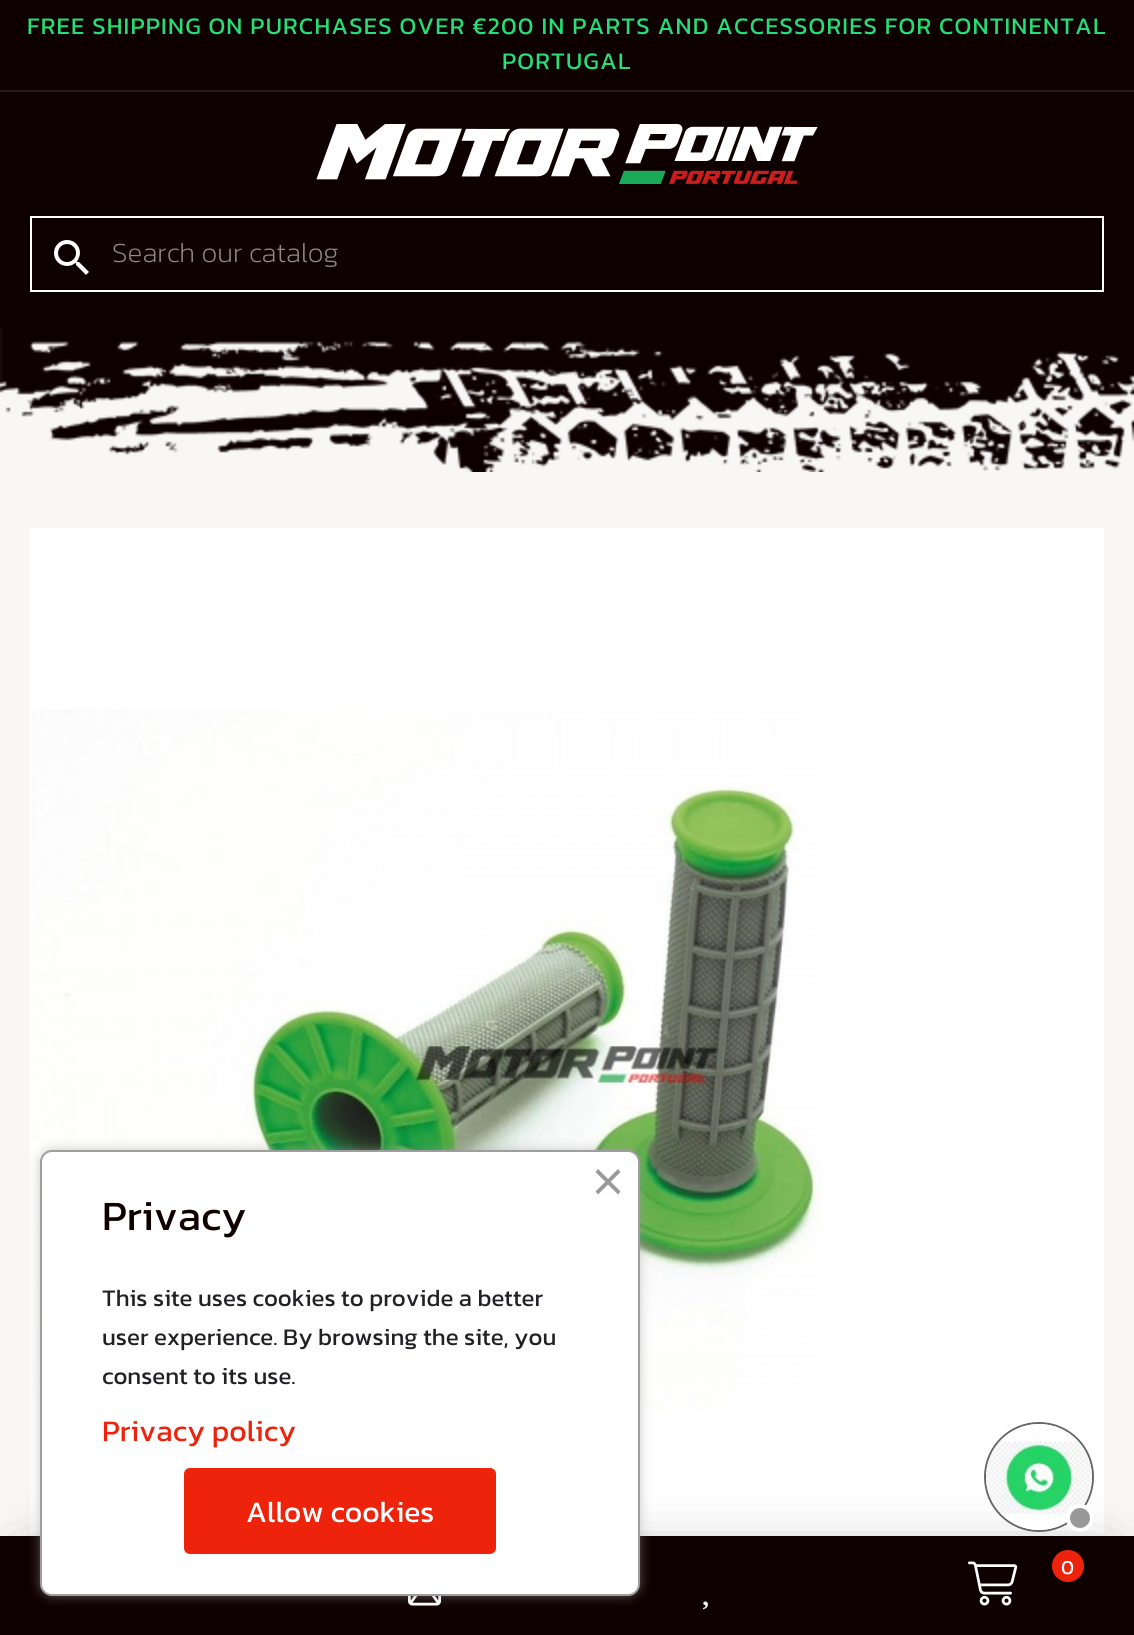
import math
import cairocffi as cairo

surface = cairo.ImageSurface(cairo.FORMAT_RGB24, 1134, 1635)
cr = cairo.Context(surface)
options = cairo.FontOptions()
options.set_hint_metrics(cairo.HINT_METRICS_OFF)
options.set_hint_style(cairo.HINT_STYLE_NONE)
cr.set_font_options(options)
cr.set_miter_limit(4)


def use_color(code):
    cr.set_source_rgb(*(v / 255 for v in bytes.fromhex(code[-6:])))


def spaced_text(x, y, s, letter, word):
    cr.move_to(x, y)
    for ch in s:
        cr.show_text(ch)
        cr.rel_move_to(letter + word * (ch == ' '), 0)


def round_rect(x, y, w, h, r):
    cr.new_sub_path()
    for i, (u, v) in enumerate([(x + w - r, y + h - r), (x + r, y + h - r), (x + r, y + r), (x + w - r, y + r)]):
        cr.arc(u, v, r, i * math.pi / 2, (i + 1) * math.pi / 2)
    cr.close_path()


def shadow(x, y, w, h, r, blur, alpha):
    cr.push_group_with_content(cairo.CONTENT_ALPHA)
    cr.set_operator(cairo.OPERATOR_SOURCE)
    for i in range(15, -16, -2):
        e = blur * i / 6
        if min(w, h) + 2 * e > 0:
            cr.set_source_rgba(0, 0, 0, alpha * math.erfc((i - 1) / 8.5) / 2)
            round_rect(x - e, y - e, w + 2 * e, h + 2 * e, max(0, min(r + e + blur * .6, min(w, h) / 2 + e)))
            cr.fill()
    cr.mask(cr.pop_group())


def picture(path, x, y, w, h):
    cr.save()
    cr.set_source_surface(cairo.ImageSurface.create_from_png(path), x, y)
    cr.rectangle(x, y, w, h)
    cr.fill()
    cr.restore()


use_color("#f8f7f6")
cr.paint()
use_color("#0f0000")
cr.rectangle(0, 0, 1134, 328)
cr.fill()
use_color("#271a1a")
cr.rectangle(0, 90, 1134, 2)
cr.fill()
cr.select_font_face("Kanit")
cr.set_font_size(24)
use_color("#24df75")
spaced_text(27, 34, "FREE SHIPPING ON PURCHASES OVER €200 IN PARTS AND ACCESSORIES FOR CONTINENTAL", 1.2, 0)
spaced_text(502, 69, "PORTUGAL", 1.2, 0)
picture("img1.png", 316, 124, 502, 60)
cr.rectangle(31, 217, 1072, 74)
use_color("#ffffff")
cr.stroke()
picture("img2.png", 54, 240, 35, 35)
cr.select_font_face("Kanit ExtraLight")
cr.set_font_size(28)
use_color("#918a8a")
cr.move_to(112, 262)
cr.show_text("Search our catalog")
picture("img3.png", 0, 328, 1134, 144)
use_color("#ffffff")
cr.rectangle(30, 528, 1074, 1008)
cr.fill()
use_color("#000000")
shadow(30, 1566, 1074, 40, 0, 30, 0.5)
use_color("#0f0000")
cr.rectangle(0, 1536, 1134, 99)
cr.fill()
picture("img4.png", 968, 1561, 50, 45)
use_color("#ee230c")
cr.arc(1068, 1566, 16, 0, 2 * math.pi)
cr.fill()
cr.select_font_face("Kanit")
cr.set_font_size(20)
use_color("#ffffff")
cr.move_to(1061, 1574)
cr.show_text("0")
picture("img5.png", 408, 1596, 33, 10)
picture("img6.png", 703, 1601, 5, 9)
picture("img7.png", 32, 709, 790, 702)
cr.arc(1039, 1477, 54, 0, 2 * math.pi)
use_color("#666666")
cr.stroke()
picture("img8.png", 986, 1424, 106, 106)
use_color("#999999")
cr.arc(1080, 1518, 12, 0, 2 * math.pi)
cr.fill_preserve()
use_color("#ffffff")
cr.set_line_width(4)
cr.stroke()
use_color("#9e9e9e")
shadow(44, 1154, 592, 438, 8, 7, 1)
use_color("#ffffff")
round_rect(41, 1151, 598, 444, 11)
cr.fill_preserve()
use_color("#9e9e9e")
cr.set_line_width(2)
cr.stroke()
use_color("#999999")
cr.new_path()
cr.move_to(595.5, 1191.5)
cr.line_to(618, 1169)
cr.line_to(620.5, 1172)
cr.line_to(598, 1194.5)
cr.close_path()
cr.fill()
cr.new_path()
cr.move_to(598, 1169)
cr.line_to(620.5, 1191.5)
cr.line_to(618, 1194.5)
cr.line_to(595.5, 1172)
cr.close_path()
cr.fill()
cr.set_font_size(42)
use_color("#0f0000")
cr.move_to(102, 1230)
cr.show_text("Privacy")
cr.set_font_size(24)
use_color("#202124")
cr.move_to(102, 1306)
cr.show_text("This site uses cookies to provide a better")
cr.move_to(102, 1345)
cr.show_text("user experience. By browsing the site, you")
cr.move_to(102, 1384)
cr.show_text("consent to its use.")
cr.set_font_size(30)
use_color("#ee230c")
cr.move_to(102, 1441)
cr.show_text("Privacy policy")
round_rect(185, 1469, 310, 84, 5)
cr.fill_preserve()
cr.stroke()
use_color("#ffffff")
cr.move_to(246, 1522)
cr.show_text("Allow cookies")
surface.write_to_png("result.png")
